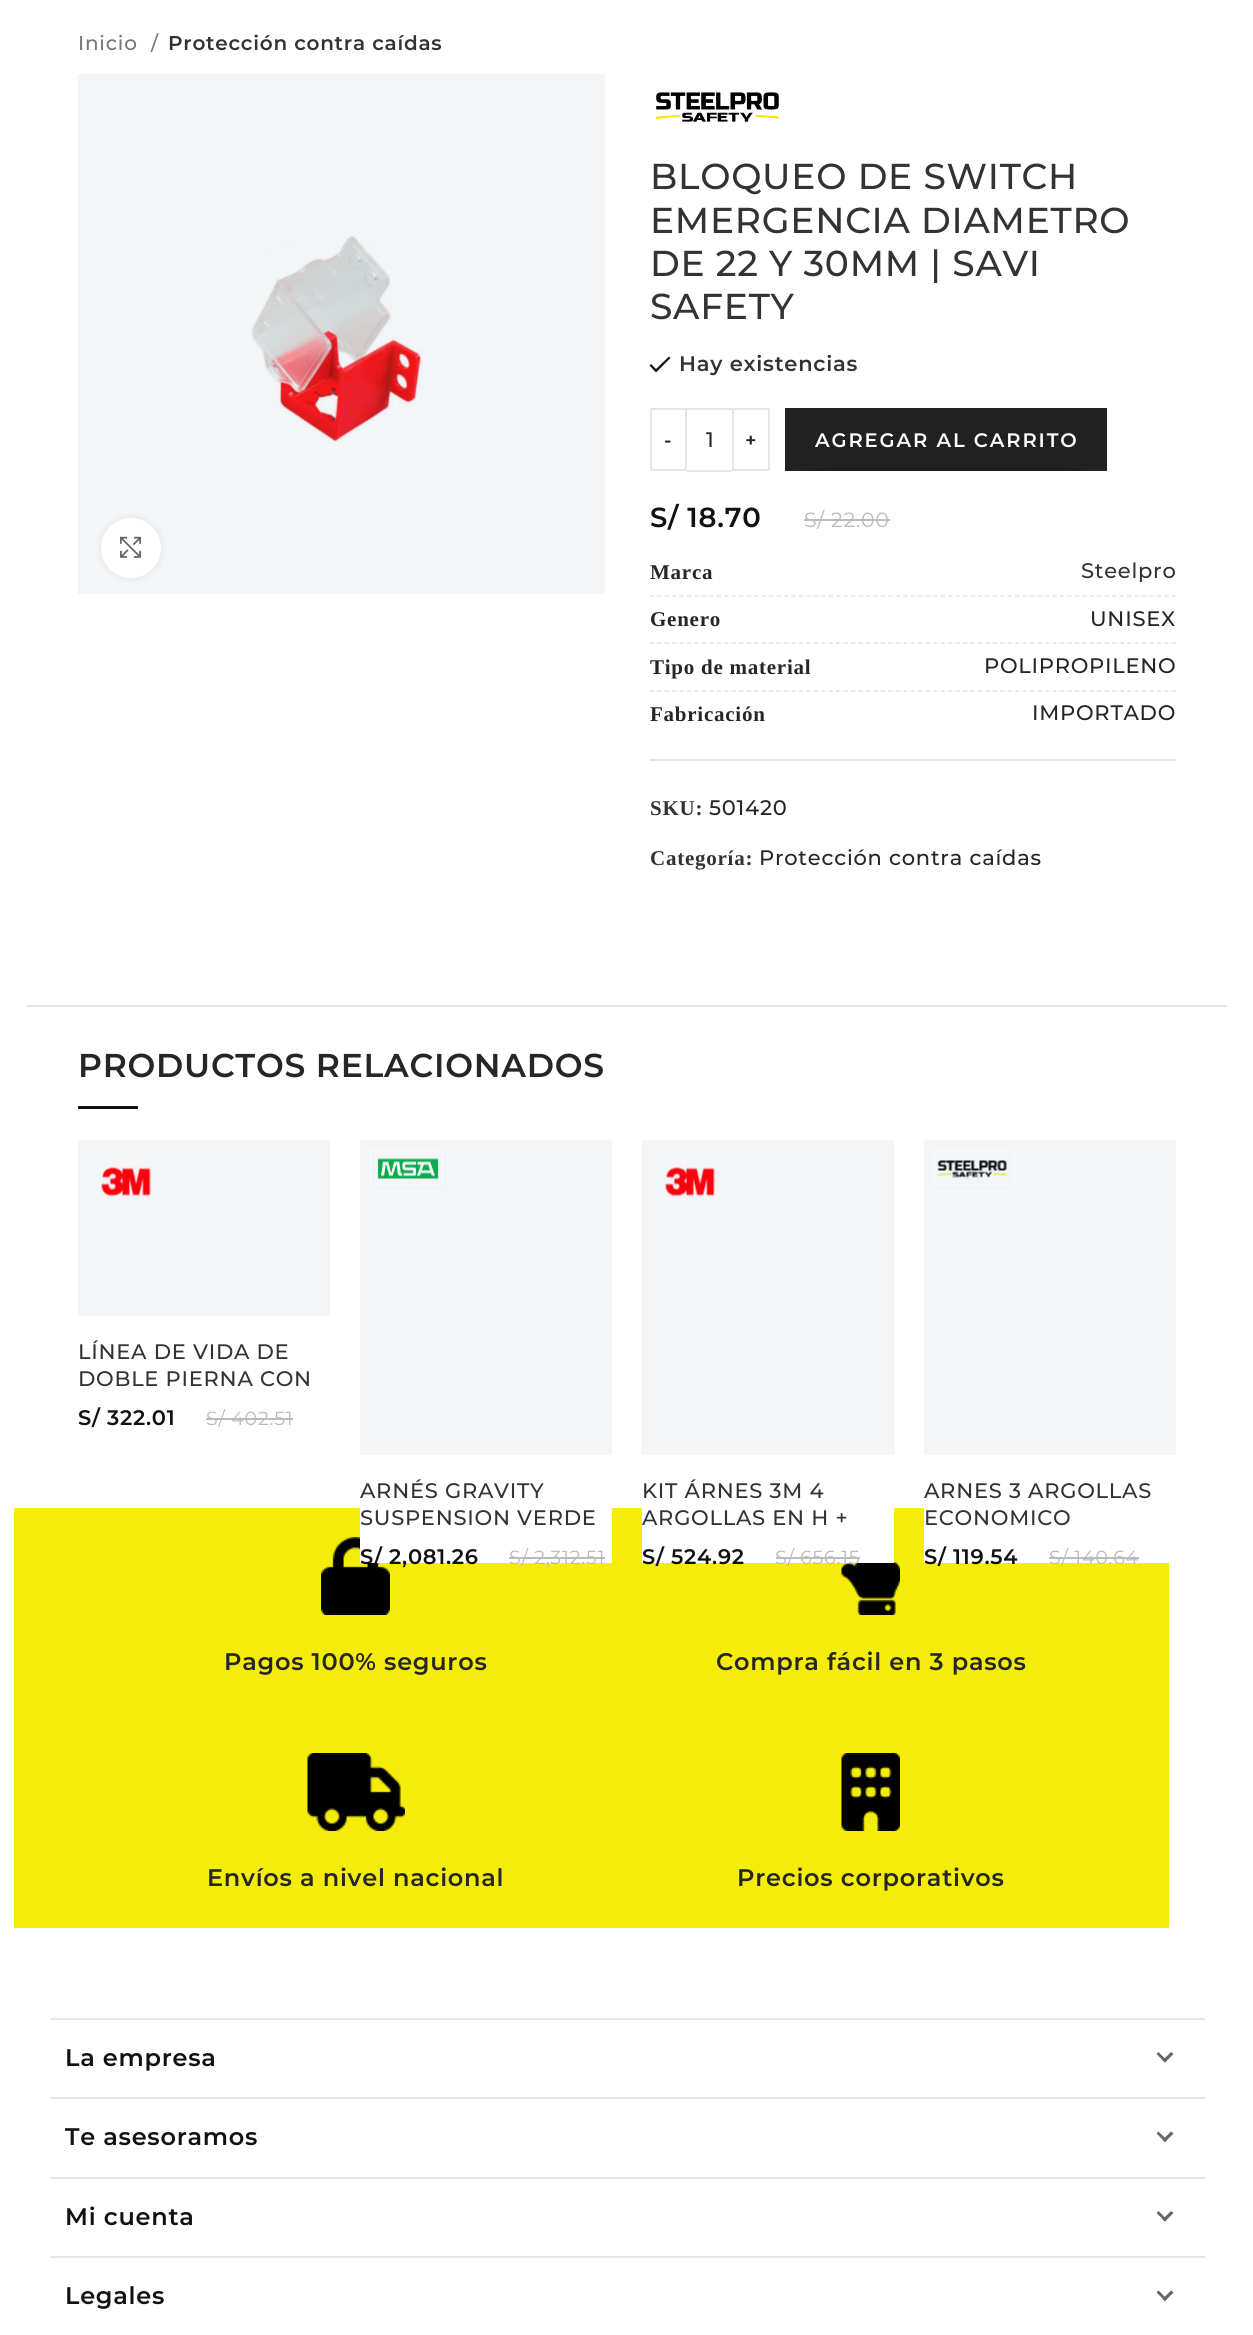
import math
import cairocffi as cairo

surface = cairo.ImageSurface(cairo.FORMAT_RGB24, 1253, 2335)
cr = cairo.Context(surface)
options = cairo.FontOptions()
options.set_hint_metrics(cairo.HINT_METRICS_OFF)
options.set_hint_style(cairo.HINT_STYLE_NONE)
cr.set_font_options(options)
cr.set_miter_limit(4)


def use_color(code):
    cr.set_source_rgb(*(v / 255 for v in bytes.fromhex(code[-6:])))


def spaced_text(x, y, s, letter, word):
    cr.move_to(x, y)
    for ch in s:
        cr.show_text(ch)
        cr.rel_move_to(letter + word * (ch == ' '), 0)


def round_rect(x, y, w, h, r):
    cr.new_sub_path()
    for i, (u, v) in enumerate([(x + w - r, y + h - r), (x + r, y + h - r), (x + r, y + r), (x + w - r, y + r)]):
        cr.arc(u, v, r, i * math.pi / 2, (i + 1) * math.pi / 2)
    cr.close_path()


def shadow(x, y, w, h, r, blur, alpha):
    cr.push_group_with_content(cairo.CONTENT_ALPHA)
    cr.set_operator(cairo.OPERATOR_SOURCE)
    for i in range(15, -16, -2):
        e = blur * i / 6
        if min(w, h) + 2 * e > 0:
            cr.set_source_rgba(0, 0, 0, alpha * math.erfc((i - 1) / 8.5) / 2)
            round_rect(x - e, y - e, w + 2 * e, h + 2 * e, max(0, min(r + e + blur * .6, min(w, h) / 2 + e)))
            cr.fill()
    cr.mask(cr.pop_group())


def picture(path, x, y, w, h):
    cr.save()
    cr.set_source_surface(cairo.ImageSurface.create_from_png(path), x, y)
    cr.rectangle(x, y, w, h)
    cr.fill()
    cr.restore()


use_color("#ffffff")
cr.paint()
use_color("#f3f5f7")
cr.rectangle(78, 74, 527, 520)
cr.fill()
cr.select_font_face("Montserrat Medium")
cr.set_font_size(20)
use_color("#777777")
spaced_text(78, 50, "Inicio", 0.75, 0)
spaced_text(151, 50, "/", 0.75, 0)
cr.select_font_face("Montserrat SemiBold")
use_color("#333333")
spaced_text(168, 50, "Protección contra caídas", 0.75, 0)
picture("img1.png", 251, 236, 172, 208)
use_color("#000000")
shadow(101, 518, 60, 60, 30, 4, 0.08)
use_color("#ffffff")
cr.arc(131, 548, 30, 0, 2 * math.pi)
cr.fill()
picture("img2.png", 120, 536, 21, 22)
picture("img3.png", 656, 92, 123, 30)
cr.select_font_face("Montserrat Medium")
cr.set_font_size(36)
use_color("#333333")
spaced_text(650, 189, "BLOQUEO DE SWITCH", 0.75, 0)
spaced_text(650, 233, "EMERGENCIA DIAMETRO", 0.75, 0)
spaced_text(650, 276, "DE 22 Y 30MM | SAVI", 0.75, 0)
spaced_text(650, 319, "SAFETY", 0.75, 0)
use_color("#111110")
cr.new_path()
cr.move_to(656, 369)
cr.line_to(669, 356.5)
cr.line_to(670.5, 358)
cr.line_to(656, 372.5)
cr.line_to(649.5, 365.5)
cr.line_to(651, 364)
cr.close_path()
cr.fill()
cr.select_font_face("Montserrat SemiBold")
cr.set_font_size(21)
use_color("#333333")
spaced_text(679, 371, "Hay existencias", 0.75, 0)
cr.rectangle(651, 409, 35, 61)
use_color("#e6e6e6")
cr.stroke()
cr.set_font_size(19.5)
use_color("#262626")
cr.move_to(664, 447)
cr.show_text("-")
use_color("#e6e6e6")
cr.rectangle(687, 408, 45, 2)
cr.fill()
cr.rectangle(687, 470, 45, 2)
cr.fill()
cr.select_font_face("Montserrat Medium")
cr.set_font_size(21)
use_color("#262626")
cr.move_to(706, 447)
cr.show_text("1")
cr.rectangle(733, 409, 36, 61)
use_color("#e6e6e6")
cr.stroke()
cr.select_font_face("Montserrat SemiBold")
cr.set_font_size(19.5)
use_color("#262626")
cr.move_to(745, 447)
cr.show_text("+")
use_color("#212121")
cr.rectangle(785, 408, 322, 63)
cr.fill()
cr.save()
cr.rectangle(785, 408, 322, 63)
cr.clip()
use_color("#1c1c1c")
cr.set_fill_rule(cairo.FILL_RULE_EVEN_ODD)
cr.new_path()
cr.move_to(636, 260)
cr.line_to(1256, 260)
cr.line_to(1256, 620)
cr.line_to(636, 620)
cr.close_path()
cr.move_to(785, 405)
cr.line_to(1053, 405)
cr.curve_to(1110, 405, 1107, 387, 1107, 416)
cr.line_to(1107, 457)
cr.curve_to(1107, 486, 1110, 468, 1053, 468)
cr.line_to(838, 468)
cr.curve_to(781, 468, 784, 486, 784, 457)
cr.close_path()
cr.fill()
cr.restore()
use_color("#ffffff")
spaced_text(815, 447, "AGREGAR AL CARRITO", 1.9, 0)
cr.set_font_size(27.5)
use_color("#111110")
spaced_text(650, 527, "S/ 18.70", 0.75, 0)
cr.select_font_face("Montserrat")
cr.set_font_size(20.5)
use_color("#bbbbbb")
spaced_text(804, 527, "S/ 22.00", 0.75, 0)
cr.rectangle(804, 519, 86, 2)
cr.fill()
cr.new_path()
cr.move_to(649.5, 596)
cr.line_to(1176, 596)
use_color("#e4e4e4")
cr.set_line_width(1.5)
cr.set_dash([4.5, 2.96])
cr.stroke()
cr.select_font_face("Liberation Serif", cairo.FONT_SLANT_NORMAL, cairo.FONT_WEIGHT_BOLD)
cr.set_font_size(21)
use_color("#262626")
spaced_text(650, 579, "Marca", 0.75, 0)
cr.select_font_face("Montserrat Medium")
use_color("#333333")
spaced_text(1081, 578, "Steelpro", 0.75, 0)
cr.new_path()
cr.move_to(649.5, 643)
cr.line_to(1176, 643)
use_color("#e4e4e4")
cr.stroke()
cr.select_font_face("Liberation Serif", cairo.FONT_SLANT_NORMAL, cairo.FONT_WEIGHT_BOLD)
use_color("#262626")
spaced_text(650, 626, "Genero", 0.75, 0)
cr.select_font_face("Montserrat Medium")
spaced_text(1090, 626, "UNISEX", 0.75, 0)
cr.new_path()
cr.move_to(649.5, 691)
cr.line_to(1176, 691)
use_color("#e4e4e4")
cr.stroke()
cr.save()
cr.rectangle(650, 557, 526, 172)
cr.clip()
cr.select_font_face("Liberation Serif", cairo.FONT_SLANT_NORMAL, cairo.FONT_WEIGHT_BOLD)
use_color("#262626")
spaced_text(650, 674, "Tipo de material", 0.75, 0)
cr.restore()
use_color("#262626")
spaced_text(984, 673, "POLIPROPILENO", 0.75, 0)
cr.select_font_face("Liberation Serif", cairo.FONT_SLANT_NORMAL, cairo.FONT_WEIGHT_BOLD)
spaced_text(650, 721, "Fabricación", 0.75, 0)
cr.select_font_face("Montserrat Medium")
spaced_text(1032, 720, "IMPORTADO", 0.75, 0)
use_color("#e4e4e4")
cr.rectangle(650, 759, 526, 2)
cr.fill()
cr.select_font_face("Liberation Serif", cairo.FONT_SLANT_NORMAL, cairo.FONT_WEIGHT_BOLD)
use_color("#333333")
spaced_text(650, 815, "SKU:", 0.75, 0)
cr.select_font_face("Montserrat Medium")
use_color("#262626")
spaced_text(709, 815, "501420", 0.75, 0)
cr.select_font_face("Liberation Serif", cairo.FONT_SLANT_NORMAL, cairo.FONT_WEIGHT_BOLD)
use_color("#333333")
spaced_text(650, 865, "Categoría:", 0.75, 0)
cr.select_font_face("Montserrat Medium")
use_color("#262626")
spaced_text(759, 865, "Protección contra caídas", 0.75, 0)
use_color("#e4e4e4")
cr.rectangle(27, 1005, 1200, 2)
cr.fill()
cr.select_font_face("Montserrat SemiBold")
cr.set_font_size(33)
use_color("#262626")
spaced_text(78, 1077, "PRODUCTOS RELACIONADOS", 0.75, 0)
use_color("#111110")
cr.rectangle(78, 1106, 60, 3)
cr.fill()
use_color("#f3f5f7")
cr.rectangle(78, 1140, 252, 176)
cr.fill()
picture("img4.png", 101, 1167, 50, 30)
cr.select_font_face("Montserrat Medium")
cr.set_font_size(21)
use_color("#333333")
spaced_text(78, 1359, "LÍNEA DE VIDA DE", 0.75, 0)
spaced_text(78, 1386, "DOBLE PIERNA CON", 0.75, 0)
cr.select_font_face("Montserrat SemiBold")
use_color("#111110")
spaced_text(78, 1425, "S/ 322.01", 0.75, 0)
cr.select_font_face("Montserrat")
cr.set_font_size(19)
use_color("#bbbbbb")
spaced_text(206, 1425, "S/ 402.51", 0.75, 0)
cr.rectangle(206, 1418, 87, 2)
cr.fill()
use_color("#f4ec09")
cr.rectangle(14, 1508, 1155, 420)
cr.fill()
picture("img8.png", 321, 1537, 69, 78)
use_color("#ffffff")
cr.rectangle(360, 1508, 252, 55)
cr.fill()
use_color("#f3f5f7")
cr.rectangle(360, 1140, 252, 315)
cr.fill()
use_color("#e8ecf0")
cr.rectangle(371, 1151, 75, 37)
cr.fill()
picture("img5.png", 370, 1150, 76, 38)
cr.select_font_face("Montserrat Medium")
cr.set_font_size(21)
use_color("#333333")
spaced_text(360, 1498, "ARNÉS GRAVITY", 0.75, 0)
spaced_text(360, 1525, "SUSPENSION VERDE", 0.75, 0)
cr.select_font_face("Montserrat SemiBold")
use_color("#111110")
spaced_text(360, 1564, "S/ 2,081.26", 0.75, 0)
cr.select_font_face("Montserrat")
cr.set_font_size(19)
use_color("#bbbbbb")
spaced_text(509, 1564, "S/ 2,312.51", 0.75, 0)
cr.rectangle(509, 1557, 96, 2)
cr.fill()
picture("img9.png", 841, 1561, 59, 54)
use_color("#ffffff")
cr.rectangle(642, 1508, 252, 55)
cr.fill()
use_color("#f3f5f7")
cr.rectangle(642, 1140, 252, 315)
cr.fill()
picture("img6.png", 665, 1167, 50, 30)
cr.select_font_face("Montserrat Medium")
cr.set_font_size(21)
use_color("#333333")
spaced_text(642, 1498, "KIT ÁRNES 3M 4", 0.75, 0)
spaced_text(642, 1525, "ARGOLLAS EN H +", 0.75, 0)
cr.select_font_face("Montserrat SemiBold")
use_color("#111110")
spaced_text(642, 1564, "S/ 524.92", 0.75, 0)
cr.select_font_face("Montserrat")
cr.set_font_size(19)
use_color("#bbbbbb")
spaced_text(775, 1564, "S/ 656.15", 0.75, 0)
cr.rectangle(776, 1557, 84, 2)
cr.fill()
use_color("#ffffff")
cr.rectangle(924, 1508, 245, 55)
cr.fill()
use_color("#f3f5f7")
cr.rectangle(924, 1140, 252, 315)
cr.fill()
use_color("#e8ecf0")
cr.rectangle(935, 1151, 75, 37)
cr.fill()
picture("img7.png", 934, 1150, 76, 38)
cr.select_font_face("Montserrat Medium")
cr.set_font_size(21)
use_color("#333333")
spaced_text(924, 1498, "ARNES 3 ARGOLLAS", 0.75, 0)
spaced_text(924, 1525, "ECONOMICO", 0.75, 0)
cr.select_font_face("Montserrat SemiBold")
use_color("#111110")
spaced_text(924, 1564, "S/ 119.54", 0.75, 0)
cr.select_font_face("Montserrat")
cr.set_font_size(19)
use_color("#bbbbbb")
spaced_text(1049, 1564, "S/ 140.64", 0.75, 0)
cr.rectangle(1049, 1557, 90, 2)
cr.fill()
cr.select_font_face("Montserrat SemiBold")
cr.set_font_size(24)
use_color("#262626")
spaced_text(224, 1670, "Pagos 100% seguros", 0.75, 0)
spaced_text(716, 1670, "Compra fácil en 3 pasos", 0.75, 0)
picture("img10.png", 307, 1753, 98, 78)
spaced_text(207, 1886, "Envíos a nivel nacional", 0.75, 0)
picture("img11.png", 841, 1753, 59, 78)
spaced_text(737, 1886, "Precios corporativos", 0.75, 0)
use_color("#e6e6e6")
cr.rectangle(50, 2018, 1155, 2)
cr.fill()
use_color("#111110")
spaced_text(65, 2066, "La empresa", 0.75, 0)
use_color("#666666")
cr.new_path()
cr.move_to(1171, 2052)
cr.line_to(1173.5, 2054)
cr.line_to(1165, 2062.5)
cr.line_to(1162.5, 2060.5)
cr.close_path()
cr.fill()
cr.new_path()
cr.move_to(1158.5, 2052)
cr.line_to(1167, 2060.5)
cr.line_to(1165, 2062.5)
cr.line_to(1156.5, 2054)
cr.close_path()
cr.fill()
use_color("#e6e6e6")
cr.rectangle(50, 2097, 1155, 2)
cr.fill()
use_color("#111110")
spaced_text(65, 2145, "Te asesoramos", 0.75, 0)
use_color("#666666")
cr.new_path()
cr.move_to(1171, 2131.5)
cr.line_to(1173.5, 2133.5)
cr.line_to(1165, 2142)
cr.line_to(1162.5, 2140)
cr.close_path()
cr.fill()
cr.new_path()
cr.move_to(1158.5, 2131.5)
cr.line_to(1167, 2140)
cr.line_to(1165, 2142)
cr.line_to(1156.5, 2133.5)
cr.close_path()
cr.fill()
use_color("#e6e6e6")
cr.rectangle(50, 2177, 1155, 2)
cr.fill()
use_color("#111110")
spaced_text(65, 2225, "Mi cuenta", 0.75, 0)
use_color("#666666")
cr.new_path()
cr.move_to(1171, 2211)
cr.line_to(1173.5, 2213)
cr.line_to(1165, 2221.5)
cr.line_to(1162.5, 2219.5)
cr.close_path()
cr.fill()
cr.new_path()
cr.move_to(1158.5, 2211)
cr.line_to(1167, 2219.5)
cr.line_to(1165, 2221.5)
cr.line_to(1156.5, 2213)
cr.close_path()
cr.fill()
use_color("#e6e6e6")
cr.rectangle(50, 2256, 1155, 2)
cr.fill()
use_color("#111110")
spaced_text(65, 2304, "Legales", 0.75, 0)
use_color("#666666")
cr.new_path()
cr.move_to(1171, 2290.5)
cr.line_to(1173.5, 2292.5)
cr.line_to(1165, 2301)
cr.line_to(1162.5, 2299)
cr.close_path()
cr.fill()
cr.new_path()
cr.move_to(1158.5, 2290.5)
cr.line_to(1167, 2299)
cr.line_to(1165, 2301)
cr.line_to(1156.5, 2292.5)
cr.close_path()
cr.fill()
surface.write_to_png("result.png")
